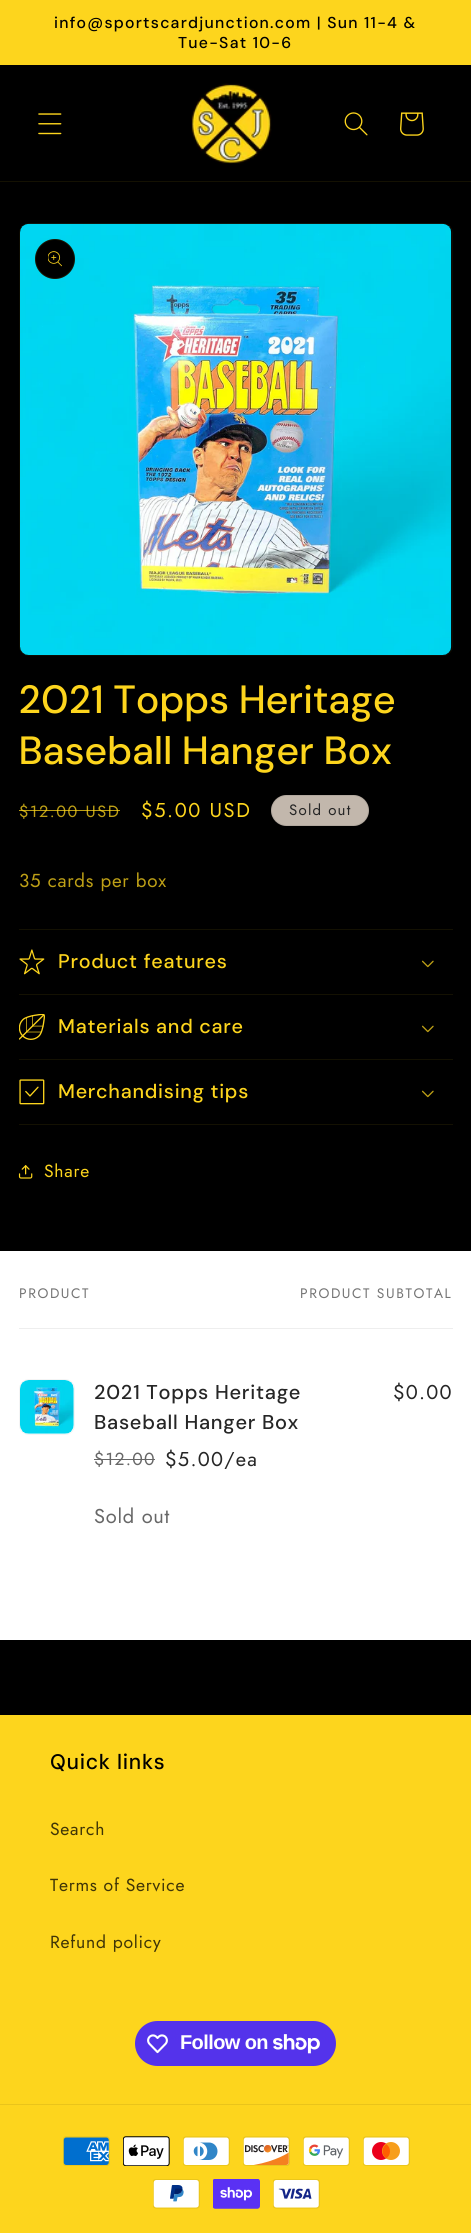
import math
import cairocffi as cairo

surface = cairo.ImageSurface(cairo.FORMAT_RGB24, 471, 2233)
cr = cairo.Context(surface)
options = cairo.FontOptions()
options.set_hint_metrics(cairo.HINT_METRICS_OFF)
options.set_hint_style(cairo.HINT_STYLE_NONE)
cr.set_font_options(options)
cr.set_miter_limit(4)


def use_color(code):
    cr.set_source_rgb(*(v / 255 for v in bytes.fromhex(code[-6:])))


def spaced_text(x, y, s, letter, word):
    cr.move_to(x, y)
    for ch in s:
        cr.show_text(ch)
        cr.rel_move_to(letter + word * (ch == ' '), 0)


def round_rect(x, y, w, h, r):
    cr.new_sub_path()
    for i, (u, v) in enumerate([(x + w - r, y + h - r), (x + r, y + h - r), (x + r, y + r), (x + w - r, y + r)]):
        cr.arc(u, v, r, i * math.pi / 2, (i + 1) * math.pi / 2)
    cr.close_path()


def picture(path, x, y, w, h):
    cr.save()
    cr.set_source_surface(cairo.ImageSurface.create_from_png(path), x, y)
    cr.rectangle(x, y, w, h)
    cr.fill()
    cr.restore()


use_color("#000000")
cr.paint()
use_color("#fdd51d")
cr.rectangle(0, 0, 471, 65)
cr.fill()
cr.select_font_face("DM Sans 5 Medium")
cr.set_font_size(15.75)
use_color("#000000")
spaced_text(54, 28, "info@sportscardjunction.com | Sun 11-4 &", 1.25, 0)
spaced_text(178, 48, "Tue-Sat 10-6", 1.25, 0)
use_color("#141102")
cr.rectangle(0, 181, 471, 1)
cr.fill()
picture("img1.png", 38, 113, 24, 22)
picture("img2.png", 191, 83, 81, 81)
picture("img3.png", 344, 112, 24, 24)
picture("img4.png", 400, 112, 24, 24)
round_rect(19.5, 223.5, 433, 432, 9.5)
use_color("#0d0b01")
cr.set_line_width(1)
cr.stroke()
picture("img5.png", 20, 223, 432, 432)
use_color("#000000")
cr.arc(55, 259, 20, 0, 2 * math.pi)
cr.fill()
cr.arc(55, 259, 19.5, 0, 2 * math.pi)
cr.set_source_rgba(0.992, 0.835, 0.114, 0.1)
cr.stroke()
picture("img6.png", 48, 251, 14, 16)
cr.select_font_face("DM Sans Medium")
cr.set_font_size(39.4)
use_color("#fdd51d")
spaced_text(19, 713, "2021 Topps Heritage", 0.75, 0)
spaced_text(19, 764, "Baseball Hanger Box", 0.75, 0)
cr.select_font_face("Jost")
cr.set_font_size(16.25)
use_color("#bea016")
spaced_text(19, 817, "$12.00 USD", 1.6, 0)
cr.set_source_rgba(0.992, 0.835, 0.114, 0.75)
cr.rectangle(19, 810, 101, 1)
cr.fill()
cr.set_font_size(20)
use_color("#fdd51d")
spaced_text(141, 817, "$5.00 USD", 1.6, 0)
use_color("#c2b7ac")
round_rect(271, 795, 98, 31, 15.5)
cr.fill()
round_rect(271.5, 795.5, 97, 30, 15)
cr.set_source_rgba(0.149, 0.149, 0.149, 0.1)
cr.stroke()
cr.set_font_size(15)
use_color("#262626")
spaced_text(289, 815, "Sold out", 1.25, 0)
cr.set_font_size(18.75)
use_color("#bea016")
spaced_text(19, 887, "35 cards per box", 0.75, 0)
use_color("#141102")
cr.rectangle(19, 929, 434, 1)
cr.fill()
cr.rectangle(19, 994, 434, 1)
cr.fill()
picture("img7.png", 19, 949, 26, 26)
cr.select_font_face("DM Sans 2 Medium")
cr.set_font_size(19.75)
use_color("#fdd51d")
spaced_text(58, 968, "Product features", 0.75, 0)
picture("img8.png", 422, 960, 12, 8)
use_color("#141102")
cr.rectangle(19, 1059, 434, 1)
cr.fill()
picture("img9.png", 19, 1014, 26, 26)
use_color("#fdd51d")
spaced_text(58, 1033, "Materials and care", 0.75, 0)
picture("img8.png", 422, 1025, 12, 8)
use_color("#141102")
cr.rectangle(19, 1124, 434, 1)
cr.fill()
picture("img10.png", 19, 1079, 26, 26)
use_color("#fdd51d")
spaced_text(58, 1098, "Merchandising tips", 0.75, 0)
picture("img8.png", 422, 1090, 12, 8)
picture("img11.png", 18, 1165, 15, 14)
cr.select_font_face("Jost")
cr.set_font_size(17.5)
spaced_text(44, 1177, "Share", 0.75, 0)
use_color("#ffffff")
cr.rectangle(0, 1251, 471, 389)
cr.fill()
use_color("#eeeeee")
cr.rectangle(19, 1328, 434, 1)
cr.fill()
cr.set_font_size(13.75)
use_color("#757575")
spaced_text(19, 1298, "PRODUCT", 1.6, 0)
spaced_text(300, 1298, "PRODUCT SUBTOTAL", 1.6, 0)
round_rect(19.5, 1379.5, 55, 55, 9.5)
use_color("#f4f4f4")
cr.stroke()
picture("img12.png", 20, 1380, 54, 54)
cr.select_font_face("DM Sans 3 Medium")
cr.set_font_size(20)
use_color("#262626")
spaced_text(94, 1399, "2021 Topps Heritage", 0.75, 0)
spaced_text(94, 1429, "Baseball Hanger Box", 0.75, 0)
cr.select_font_face("Jost")
cr.set_font_size(17.5)
use_color("#676767")
spaced_text(94, 1465, "$12.00", 1.25, 0)
cr.rectangle(94, 1459, 61, 1)
cr.fill()
cr.set_font_size(20)
use_color("#262626")
spaced_text(165, 1466, "$5.00/ea", 1.25, 0)
spaced_text(393, 1399, "$0.00", 1.25, 0)
use_color("#676767")
spaced_text(94, 1523, "Sold out", 0.75, 0)
use_color("#fdd51d")
cr.rectangle(0, 1715, 471, 518)
cr.fill()
cr.select_font_face("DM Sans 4 Medium")
cr.set_font_size(21)
use_color("#000000")
spaced_text(50, 1769, "Quick links", 0.75, 0)
cr.select_font_face("Jost")
cr.set_font_size(17.5)
use_color("#3f3507")
spaced_text(50, 1835, "Search", 0.75, 0)
spaced_text(50, 1891, "Terms of Service", 0.75, 0)
spaced_text(50, 1948, "Refund policy", 0.75, 0)
use_color("#5433eb")
round_rect(135, 2021, 201, 45, 22.5)
cr.fill()
picture("img13.png", 147, 2034, 21, 20)
cr.select_font_face("Liberation Sans", cairo.FONT_SLANT_NORMAL, cairo.FONT_WEIGHT_BOLD)
cr.set_font_size(20)
use_color("#ffffff")
spaced_text(180, 2049, "Follow on", -0.6, 0)
picture("img14.png", 273, 2034, 47, 20)
use_color("#e9c41b")
cr.rectangle(0, 2104, 471, 1)
cr.fill()
picture("img15.png", 63, 2136, 47, 30)
picture("img16.png", 123, 2136, 47, 30)
picture("img17.png", 183, 2136, 47, 30)
picture("img18.png", 243, 2136, 47, 30)
picture("img19.png", 303, 2136, 47, 30)
picture("img20.png", 363, 2136, 47, 30)
picture("img21.png", 153, 2179, 47, 30)
picture("img22.png", 213, 2179, 47, 30)
picture("img23.png", 273, 2179, 47, 30)
surface.write_to_png("result.png")
